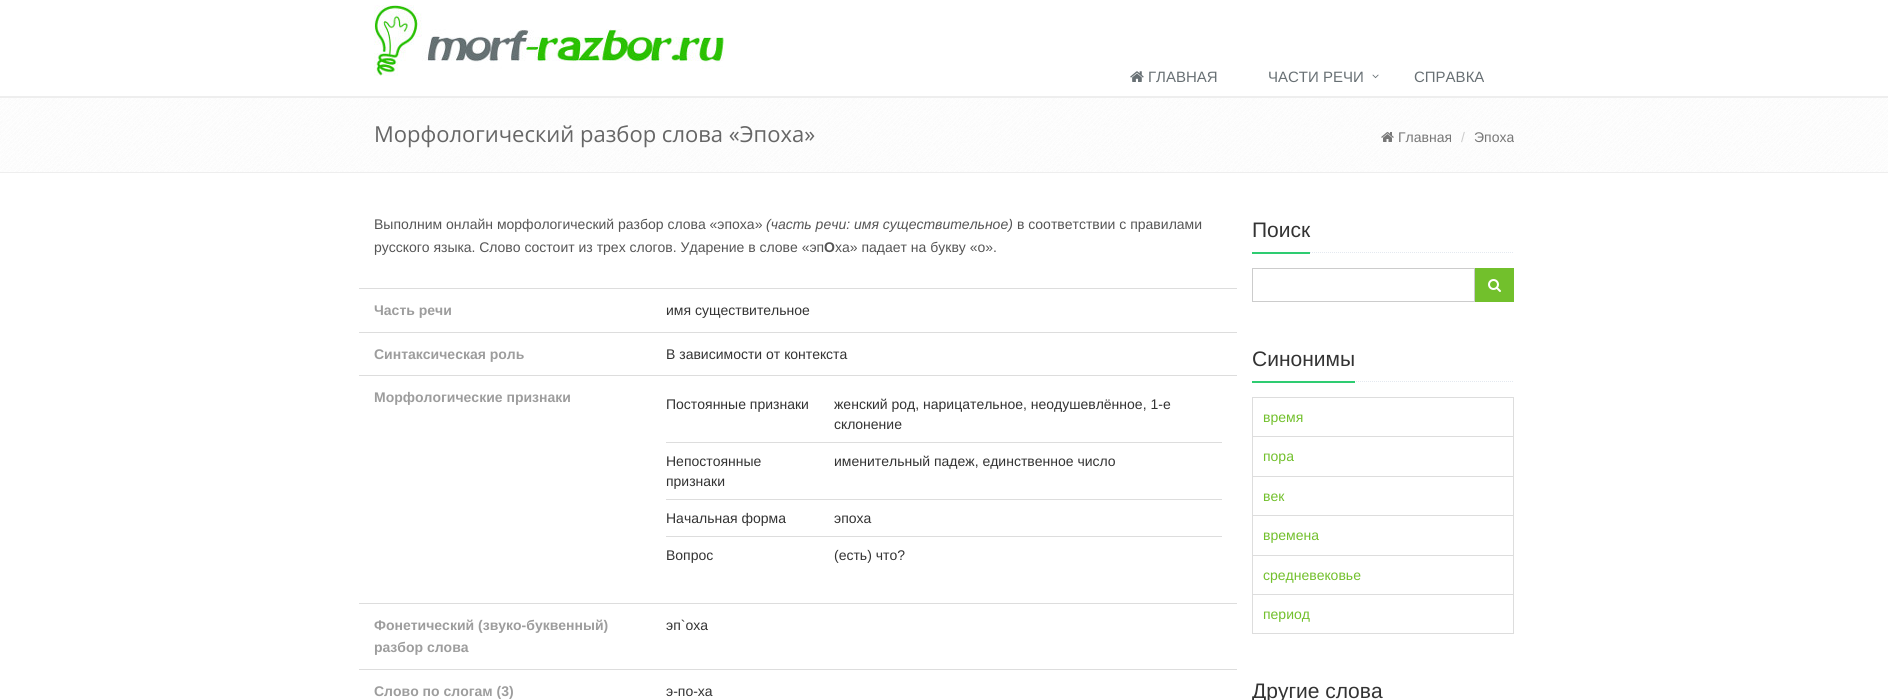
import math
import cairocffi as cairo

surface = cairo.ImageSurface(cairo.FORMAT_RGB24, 1888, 700)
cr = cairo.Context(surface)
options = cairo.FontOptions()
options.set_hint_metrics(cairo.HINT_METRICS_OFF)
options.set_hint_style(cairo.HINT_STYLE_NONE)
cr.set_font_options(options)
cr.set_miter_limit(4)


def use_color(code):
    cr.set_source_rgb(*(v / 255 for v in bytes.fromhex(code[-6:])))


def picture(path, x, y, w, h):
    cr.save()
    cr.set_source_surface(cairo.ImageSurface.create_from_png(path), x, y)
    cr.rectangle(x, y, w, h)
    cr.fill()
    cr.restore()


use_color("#ffffff")
cr.paint()
use_color("#eeeeee")
cr.rectangle(0, 96, 1888, 2)
cr.fill()
picture("img1.png", 374, 5, 350, 71)
picture("img2.png", 1130, 71, 14, 11)
cr.select_font_face("Liberation Sans")
cr.set_font_size(15)
use_color("#687074")
cr.move_to(1148, 82)
cr.show_text("ГЛАВНАЯ")
cr.move_to(1268, 82)
cr.show_text("ЧАСТИ РЕЧИ")
picture("img3.png", 1372, 74, 7, 5)
cr.move_to(1414, 82)
cr.show_text("СПРАВКА")
picture("img4.png", 0, 98, 1888, 74)
use_color("#eeeeee")
cr.rectangle(0, 172, 1888, 1)
cr.fill()
cr.select_font_face("Open Sans")
cr.set_font_size(22)
use_color("#666666")
cr.move_to(374, 142)
cr.show_text("Морфологический разбор слова «Эпоха»")
picture("img5.png", 1381, 132, 13, 10)
cr.select_font_face("Liberation Sans")
cr.set_font_size(14)
use_color("#777777")
cr.move_to(1398, 142)
cr.show_text("Главная")
use_color("#cccccc")
cr.move_to(1461, 142)
cr.show_text("/")
use_color("#777777")
cr.move_to(1474, 142)
cr.show_text("Эпоха")
use_color("#555555")
cr.move_to(374, 229)
cr.show_text("Выполним онлайн морфологический разбор слова «эпоха»")
cr.select_font_face("Liberation Sans", cairo.FONT_SLANT_ITALIC)
cr.move_to(766, 229)
cr.show_text("(часть речи: имя существительное)")
cr.select_font_face("Liberation Sans")
cr.move_to(1017, 229)
cr.show_text("в соответствии с правилами")
cr.move_to(374, 252)
cr.show_text("русского языка. Слово состоит из трех слогов. Ударение в слове «эп")
cr.select_font_face("Liberation Sans", cairo.FONT_SLANT_NORMAL, cairo.FONT_WEIGHT_BOLD)
cr.move_to(824, 252)
cr.show_text("О")
cr.select_font_face("Liberation Sans")
cr.move_to(835, 252)
cr.show_text("ха» падает на букву «о».")
use_color("#dddddd")
cr.rectangle(359, 288, 878, 1)
cr.fill()
cr.select_font_face("Liberation Sans", cairo.FONT_SLANT_NORMAL, cairo.FONT_WEIGHT_BOLD)
use_color("#9d9d9d")
cr.move_to(374, 315)
cr.show_text("Часть речи")
cr.select_font_face("Liberation Sans")
use_color("#333333")
cr.move_to(666, 315)
cr.show_text("имя существительное")
use_color("#dddddd")
cr.rectangle(359, 332, 878, 1)
cr.fill()
cr.select_font_face("Liberation Sans", cairo.FONT_SLANT_NORMAL, cairo.FONT_WEIGHT_BOLD)
use_color("#9d9d9d")
cr.move_to(374, 359)
cr.show_text("Синтаксическая роль")
cr.select_font_face("Liberation Sans")
use_color("#333333")
cr.move_to(666, 359)
cr.show_text("В зависимости от контекста")
use_color("#dddddd")
cr.rectangle(359, 375, 878, 1)
cr.fill()
cr.select_font_face("Liberation Sans", cairo.FONT_SLANT_NORMAL, cairo.FONT_WEIGHT_BOLD)
use_color("#9d9d9d")
cr.move_to(374, 402)
cr.show_text("Морфологические признаки")
cr.select_font_face("Liberation Sans")
use_color("#333333")
cr.move_to(666, 409)
cr.show_text("Постоянные признаки")
cr.move_to(834, 409)
cr.show_text("женский род, нарицательное, неодушевлённое, 1-е")
cr.move_to(834, 429)
cr.show_text("склонение")
cr.move_to(666, 466)
cr.show_text("Непостоянные")
cr.move_to(666, 486)
cr.show_text("признаки")
use_color("#dddddd")
cr.rectangle(666, 442, 556, 1)
cr.fill()
use_color("#333333")
cr.move_to(834, 466)
cr.show_text("именительный падеж, единственное число")
cr.move_to(666, 523)
cr.show_text("Начальная форма")
use_color("#dddddd")
cr.rectangle(666, 499, 556, 1)
cr.fill()
use_color("#333333")
cr.move_to(834, 523)
cr.show_text("эпоха")
cr.move_to(666, 560)
cr.show_text("Вопрос")
use_color("#dddddd")
cr.rectangle(666, 536, 556, 1)
cr.fill()
use_color("#333333")
cr.move_to(834, 560)
cr.show_text("(есть) что?")
use_color("#dddddd")
cr.rectangle(359, 603, 878, 1)
cr.fill()
cr.select_font_face("Liberation Sans", cairo.FONT_SLANT_NORMAL, cairo.FONT_WEIGHT_BOLD)
use_color("#9d9d9d")
cr.move_to(374, 630)
cr.show_text("Фонетический (звуко-буквенный)")
cr.move_to(374, 652)
cr.show_text("разбор слова")
cr.select_font_face("Liberation Sans")
use_color("#333333")
cr.move_to(666, 630)
cr.show_text("эп`оха")
use_color("#dddddd")
cr.rectangle(359, 669, 878, 1)
cr.fill()
cr.select_font_face("Liberation Sans", cairo.FONT_SLANT_NORMAL, cairo.FONT_WEIGHT_BOLD)
use_color("#9d9d9d")
cr.move_to(374, 696)
cr.show_text("Слово по слогам (3)")
cr.select_font_face("Liberation Sans")
use_color("#333333")
cr.move_to(666, 696)
cr.show_text("э-по-ха")
cr.new_path()
cr.move_to(1252, 252.5)
cr.line_to(1514, 252.5)
use_color("#e4e9f0")
cr.set_line_width(1)
cr.set_dash([1, 1])
cr.stroke()
use_color("#2ecc71")
cr.rectangle(1252, 252, 58, 2)
cr.fill()
cr.set_font_size(21)
use_color("#333333")
cr.move_to(1252, 237)
cr.show_text("Поиск")
cr.rectangle(1252.5, 268.5, 222, 33)
use_color("#cccccc")
cr.set_dash([])
cr.stroke()
use_color("#72c02c")
cr.rectangle(1475, 268, 39, 34)
cr.fill()
picture("img6.png", 1488, 279, 13, 13)
cr.new_path()
cr.move_to(1252, 381.5)
cr.line_to(1514, 381.5)
use_color("#e4e9f0")
cr.set_dash([1, 1])
cr.stroke()
use_color("#2ecc71")
cr.rectangle(1252, 381, 103, 2)
cr.fill()
use_color("#333333")
cr.move_to(1252, 366)
cr.show_text("Синонимы")
cr.rectangle(1252.5, 397.5, 261, 39)
use_color("#dddddd")
cr.set_dash([])
cr.stroke()
cr.set_font_size(14)
use_color("#72c02c")
cr.move_to(1263, 422)
cr.show_text("время")
cr.rectangle(1252.5, 436.5, 261, 40)
use_color("#dddddd")
cr.stroke()
use_color("#72c02c")
cr.move_to(1263, 461)
cr.show_text("пора")
cr.rectangle(1252.5, 476.5, 261, 39)
use_color("#dddddd")
cr.stroke()
use_color("#72c02c")
cr.move_to(1263, 501)
cr.show_text("век")
cr.rectangle(1252.5, 515.5, 261, 40)
use_color("#dddddd")
cr.stroke()
use_color("#72c02c")
cr.move_to(1263, 540)
cr.show_text("времена")
cr.rectangle(1252.5, 555.5, 261, 39)
use_color("#dddddd")
cr.stroke()
use_color("#72c02c")
cr.move_to(1263, 580)
cr.show_text("средневековье")
cr.rectangle(1252.5, 594.5, 261, 39)
use_color("#dddddd")
cr.stroke()
use_color("#72c02c")
cr.move_to(1263, 619)
cr.show_text("период")
cr.set_font_size(21)
use_color("#333333")
cr.move_to(1252, 698)
cr.show_text("Другие слова")
surface.write_to_png("result.png")
